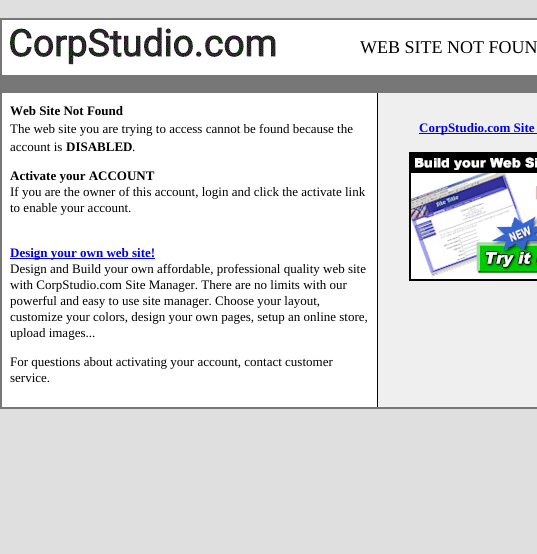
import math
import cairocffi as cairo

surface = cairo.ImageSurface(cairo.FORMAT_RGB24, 537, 554)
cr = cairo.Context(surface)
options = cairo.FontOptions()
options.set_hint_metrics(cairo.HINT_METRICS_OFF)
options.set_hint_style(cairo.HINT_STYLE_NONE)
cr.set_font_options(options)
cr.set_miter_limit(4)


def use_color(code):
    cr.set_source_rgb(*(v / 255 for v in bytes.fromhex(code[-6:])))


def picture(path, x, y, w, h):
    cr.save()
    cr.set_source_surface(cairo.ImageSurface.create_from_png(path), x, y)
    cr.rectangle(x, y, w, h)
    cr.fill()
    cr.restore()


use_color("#dfdfdf")
cr.paint()
use_color("#ffffff")
cr.rectangle(2, 20, 535, 387)
cr.fill()
cr.rectangle(0.5, 18.5, 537, 390)
use_color("#777777")
cr.set_line_width(1)
cr.stroke()
cr.rectangle(1.5, 19.5, 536, 388)
cr.stroke()
picture("img1.png", 10, 27, 266, 38)
cr.select_font_face("Liberation Serif")
cr.set_font_size(18)
use_color("#000000")
cr.move_to(360, 53)
cr.show_text("WEB SITE NOT FOUN")
use_color("#777777")
cr.rectangle(2, 75, 535, 18)
cr.fill()
cr.select_font_face("Liberation Serif", cairo.FONT_SLANT_NORMAL, cairo.FONT_WEIGHT_BOLD)
cr.set_font_size(13)
use_color("#000000")
cr.move_to(10, 115)
cr.show_text("Web Site Not Found")
cr.select_font_face("Liberation Serif")
cr.move_to(10, 133)
cr.show_text("The web site you are trying to access cannot be found because the")
cr.move_to(10, 151)
cr.show_text("account is")
cr.select_font_face("Liberation Serif", cairo.FONT_SLANT_NORMAL, cairo.FONT_WEIGHT_BOLD)
cr.move_to(66, 151)
cr.show_text("DISABLED")
cr.select_font_face("Liberation Serif")
cr.move_to(132, 151)
cr.show_text(".")
cr.select_font_face("Liberation Serif", cairo.FONT_SLANT_NORMAL, cairo.FONT_WEIGHT_BOLD)
cr.move_to(10, 180)
cr.show_text("Activate your ACCOUNT")
cr.select_font_face("Liberation Serif")
cr.move_to(10, 196)
cr.show_text("If you are the owner of this account, login and click the activate link")
cr.move_to(10, 212)
cr.show_text("to enable your account.")
use_color("#0000ee")
cr.rectangle(10, 258, 145, 1)
cr.fill()
cr.select_font_face("Liberation Serif", cairo.FONT_SLANT_NORMAL, cairo.FONT_WEIGHT_BOLD)
cr.move_to(10, 257)
cr.show_text("Design your own web site!")
cr.select_font_face("Liberation Serif")
use_color("#000000")
cr.move_to(10, 273)
cr.show_text("Design and Build your own affordable, professional quality web site")
cr.move_to(10, 289)
cr.show_text("with CorpStudio.com Site Manager. There are no limits with our")
cr.move_to(10, 305)
cr.show_text("powerful and easy to use site manager. Choose your layout,")
cr.move_to(10, 321)
cr.show_text("customize your colors, design your own pages, setup an online store,")
cr.move_to(10, 337)
cr.show_text("upload images...")
cr.move_to(10, 366)
cr.show_text("For questions about activating your account, contact customer")
cr.move_to(10, 382)
cr.show_text("service.")
cr.rectangle(377, 93, 1, 314)
cr.fill()
use_color("#efefef")
cr.rectangle(378, 93, 159, 314)
cr.fill()
use_color("#0000ee")
cr.rectangle(419, 133, 118, 1)
cr.fill()
cr.select_font_face("Liberation Serif", cairo.FONT_SLANT_NORMAL, cairo.FONT_WEIGHT_BOLD)
cr.move_to(419, 132)
cr.show_text("CorpStudio.com Site")
picture("img2.png", 409, 152, 128, 129)
surface.write_to_png("result.png")
